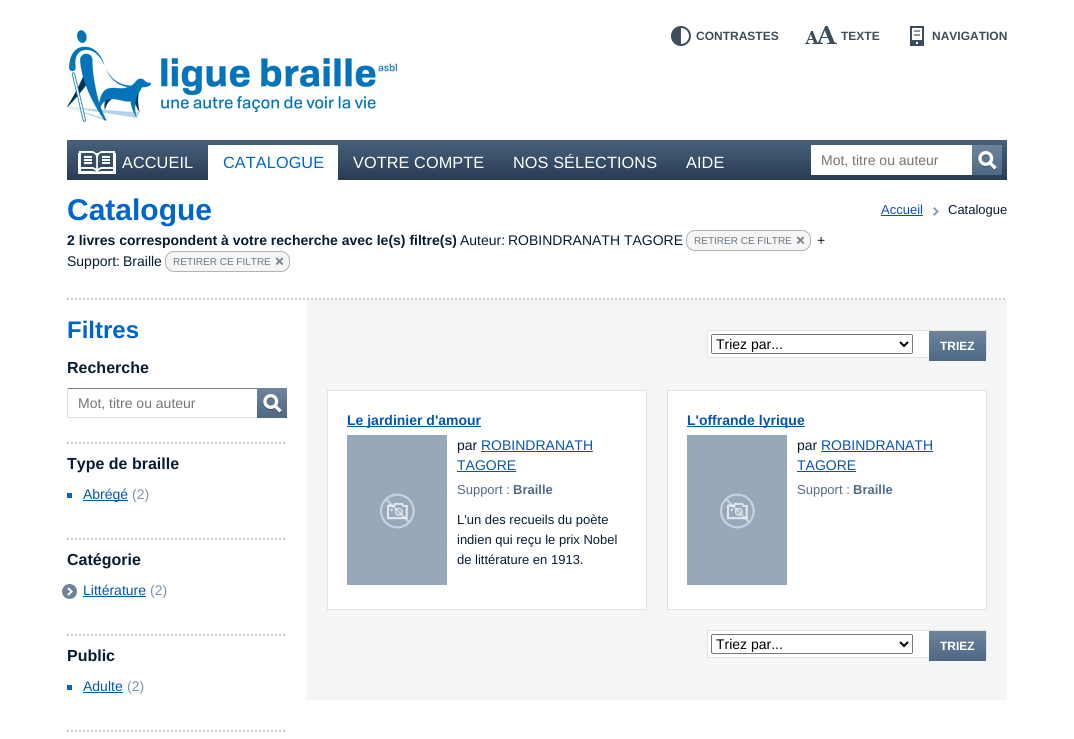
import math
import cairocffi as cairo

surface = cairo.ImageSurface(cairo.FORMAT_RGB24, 1074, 739)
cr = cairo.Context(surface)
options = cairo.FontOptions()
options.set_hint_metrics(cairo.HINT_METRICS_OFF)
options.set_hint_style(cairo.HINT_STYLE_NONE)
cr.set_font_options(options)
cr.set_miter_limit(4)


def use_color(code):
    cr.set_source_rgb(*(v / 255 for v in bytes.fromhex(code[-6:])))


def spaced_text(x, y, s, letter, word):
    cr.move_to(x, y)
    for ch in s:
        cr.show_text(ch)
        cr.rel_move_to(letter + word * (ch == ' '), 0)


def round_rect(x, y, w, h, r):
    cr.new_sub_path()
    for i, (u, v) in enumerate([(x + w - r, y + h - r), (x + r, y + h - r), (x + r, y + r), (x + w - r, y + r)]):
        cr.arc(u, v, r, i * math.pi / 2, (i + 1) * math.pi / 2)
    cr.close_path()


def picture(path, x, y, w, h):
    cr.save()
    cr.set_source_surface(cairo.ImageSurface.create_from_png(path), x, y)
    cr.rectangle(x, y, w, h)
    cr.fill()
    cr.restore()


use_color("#ffffff")
cr.paint()
picture("img1.png", 67, 30, 330, 92)
picture("img2.png", 671, 26, 20, 20)
cr.select_font_face("Liberation Sans", cairo.FONT_SLANT_NORMAL, cairo.FONT_WEIGHT_BOLD)
cr.set_font_size(12)
use_color("#3d4d5e")
cr.move_to(696, 40)
cr.show_text("CONTRASTES")
picture("img3.png", 805, 26, 32, 18)
cr.move_to(841, 40)
cr.show_text("TEXTE")
picture("img4.png", 910, 26, 14, 20)
cr.move_to(932, 40)
cr.show_text("NAVIGATION")
gradient = cairo.LinearGradient(537, 140, 537, 180)
gradient.add_color_stop_rgba(0, 0.282, 0.38, 0.49, 1)
gradient.add_color_stop_rgba(1, 0.157, 0.235, 0.322, 1)
cr.set_source(gradient)
cr.rectangle(67, 140, 940, 40)
cr.fill()
picture("img5.png", 78, 151, 38, 23)
cr.select_font_face("Liberation Sans")
cr.set_font_size(16.25)
use_color("#ffffff")
spaced_text(122, 168, "ACCUEIL", 0.1, 0)
cr.rectangle(208, 145, 130, 35)
cr.fill()
use_color("#0066cc")
spaced_text(223, 168, "CATALOGUE", 0.1, 0)
use_color("#ffffff")
spaced_text(353, 168, "VOTRE COMPTE", 0.1, 0)
spaced_text(513, 168, "NOS SÉLECTIONS", 0.1, 0)
spaced_text(686, 168, "AIDE", 0.1, 0)
cr.rectangle(811, 145, 161, 30)
cr.fill()
cr.set_font_size(14)
use_color("#757575")
cr.move_to(821, 165)
cr.show_text("Mot, titre ou auteur")
gradient = cairo.LinearGradient(987, 145, 987, 175)
gradient.add_color_stop_rgba(0, 0.431, 0.518, 0.608, 1)
gradient.add_color_stop_rgba(1, 0.306, 0.412, 0.522, 1)
cr.set_source(gradient)
cr.rectangle(972, 145, 30, 30)
cr.fill()
picture("img6.png", 978, 151, 19, 20)
picture("img7.png", 67, 298, 938, 2)
cr.select_font_face("Liberation Sans", cairo.FONT_SLANT_NORMAL, cairo.FONT_WEIGHT_BOLD)
cr.set_font_size(30)
use_color("#0066cc")
cr.move_to(67, 220)
cr.show_text("Catalogue")
cr.select_font_face("Liberation Sans")
cr.set_font_size(13)
use_color("#0655ad")
cr.move_to(881, 214)
cr.show_text("Accueil")
cr.rectangle(881, 215, 42, 1)
cr.fill()
picture("img8.png", 933, 207, 6, 9)
use_color("#071c32")
cr.move_to(948, 214)
cr.show_text("Catalogue")
cr.select_font_face("Liberation Sans", cairo.FONT_SLANT_NORMAL, cairo.FONT_WEIGHT_BOLD)
cr.set_font_size(14)
cr.move_to(67, 245)
cr.show_text("2 livres correspondent à votre recherche avec le(s) filtre(s)")
cr.select_font_face("Liberation Sans")
cr.move_to(460, 245)
cr.show_text("Auteur:")
cr.move_to(508, 245)
cr.show_text("ROBINDRANATH TAGORE")
use_color("#f5f5f5")
round_rect(686.5, 230.5, 124, 20, 8.5)
cr.fill_preserve()
use_color("#afb3ba")
cr.set_line_width(1)
cr.stroke()
cr.set_font_size(10)
use_color("#6a7783")
cr.move_to(694, 244)
cr.show_text("RETIRER CE FILTRE")
picture("img9.png", 796, 236, 9, 8)
cr.set_font_size(14)
use_color("#071c32")
cr.move_to(817, 245)
cr.show_text("+")
cr.move_to(67, 266)
cr.show_text("Support:")
cr.move_to(123, 266)
cr.show_text("Braille")
use_color("#f5f5f5")
round_rect(165.5, 251.5, 124, 20, 8.5)
cr.fill_preserve()
use_color("#afb3ba")
cr.stroke()
cr.set_font_size(10)
use_color("#6a7783")
cr.move_to(173, 265)
cr.show_text("RETIRER CE FILTRE")
picture("img9.png", 275, 257, 9, 8)
cr.select_font_face("Liberation Sans", cairo.FONT_SLANT_NORMAL, cairo.FONT_WEIGHT_BOLD)
cr.set_font_size(24)
use_color("#0066cc")
cr.move_to(67, 338)
cr.show_text("Filtres")
cr.set_font_size(16)
use_color("#071c32")
cr.move_to(67, 373)
cr.show_text("Recherche")
use_color("#7c7c7c")
cr.rectangle(67, 388, 190, 1)
cr.fill()
use_color("#dddddd")
cr.rectangle(67, 417, 190, 1)
cr.fill()
cr.rectangle(67, 388, 1, 30)
cr.fill()
cr.select_font_face("Liberation Sans")
cr.set_font_size(14)
use_color("#757575")
cr.move_to(78, 408)
cr.show_text("Mot, titre ou auteur")
gradient = cairo.LinearGradient(272, 388, 272, 418)
gradient.add_color_stop_rgba(0, 0.431, 0.518, 0.608, 1)
gradient.add_color_stop_rgba(1, 0.306, 0.412, 0.522, 1)
cr.set_source(gradient)
cr.rectangle(257, 388, 30, 30)
cr.fill()
picture("img6.png", 263, 394, 19, 20)
picture("img10.png", 67, 442, 218, 2)
cr.select_font_face("Liberation Sans", cairo.FONT_SLANT_NORMAL, cairo.FONT_WEIGHT_BOLD)
cr.set_font_size(16)
use_color("#071c32")
cr.move_to(67, 469)
cr.show_text("Type de braille")
use_color("#0066cc")
cr.rectangle(67, 493, 5, 5)
cr.fill()
use_color("#0655ad")
cr.rectangle(83, 500, 45, 1)
cr.fill()
cr.select_font_face("Liberation Sans")
cr.set_font_size(14)
cr.move_to(83, 499)
cr.show_text("Abrégé")
use_color("#8093a7")
cr.move_to(132, 499)
cr.show_text("(2)")
picture("img10.png", 67, 538, 218, 2)
cr.select_font_face("Liberation Sans", cairo.FONT_SLANT_NORMAL, cairo.FONT_WEIGHT_BOLD)
cr.set_font_size(16)
use_color("#071c32")
cr.move_to(67, 565)
cr.show_text("Catégorie")
picture("img11.png", 62, 584, 15, 15)
cr.select_font_face("Liberation Sans")
cr.set_font_size(14)
use_color("#0655ad")
cr.move_to(83, 595)
cr.show_text("Littérature")
cr.rectangle(83, 596, 63, 1)
cr.fill()
use_color("#8093a7")
cr.move_to(150, 595)
cr.show_text("(2)")
picture("img10.png", 67, 634, 218, 2)
cr.select_font_face("Liberation Sans", cairo.FONT_SLANT_NORMAL, cairo.FONT_WEIGHT_BOLD)
cr.set_font_size(16)
use_color("#071c32")
cr.move_to(67, 661)
cr.show_text("Public")
use_color("#0066cc")
cr.rectangle(67, 685, 5, 5)
cr.fill()
cr.select_font_face("Liberation Sans")
cr.set_font_size(14)
use_color("#0655ad")
cr.move_to(83, 691)
cr.show_text("Adulte")
cr.rectangle(83, 692, 40, 1)
cr.fill()
use_color("#8093a7")
cr.move_to(127, 691)
cr.show_text("(2)")
picture("img10.png", 67, 730, 218, 2)
use_color("#f5f5f5")
cr.rectangle(307, 300, 700, 400)
cr.fill()
use_color("#ffffff")
cr.rectangle(708, 331, 221, 26)
cr.fill()
cr.rectangle(707.5, 330.5, 279, 27)
use_color("#e6e1e1")
cr.stroke()
round_rect(711.5, 334.5, 201, 19, 1.5)
use_color("#767676")
cr.stroke()
cr.new_path()
cr.move_to(900, 342)
cr.line_to(904, 346)
cr.line_to(908, 342)
use_color("#000000")
cr.set_line_width(2)
cr.stroke()
cr.move_to(716, 349)
cr.show_text("Triez par...")
gradient = cairo.LinearGradient(958, 331, 958, 361)
gradient.add_color_stop_rgba(0, 0.431, 0.518, 0.608, 1)
gradient.add_color_stop_rgba(1, 0.302, 0.408, 0.522, 1)
cr.set_source(gradient)
cr.rectangle(929, 331, 57, 30)
cr.fill()
cr.select_font_face("Liberation Sans", cairo.FONT_SLANT_NORMAL, cairo.FONT_WEIGHT_BOLD)
cr.set_font_size(12)
use_color("#ffffff")
cr.move_to(940, 350)
cr.show_text("TRIEZ")
cr.rectangle(327.5, 390.5, 319, 219)
cr.fill_preserve()
use_color("#e6e1e1")
cr.set_line_width(1)
cr.stroke()
use_color("#0655ad")
cr.rectangle(347, 426, 134, 1)
cr.fill()
cr.set_font_size(14)
cr.move_to(347, 425)
cr.show_text("Le jardinier d'amour")
picture("img12.png", 347, 435, 100, 150)
cr.select_font_face("Liberation Sans")
use_color("#071c32")
cr.move_to(457, 450)
cr.show_text("par")
use_color("#0655ad")
cr.move_to(481, 450)
cr.show_text("ROBINDRANATH")
cr.rectangle(481, 451, 112, 1)
cr.fill()
cr.move_to(457, 470)
cr.show_text("TAGORE")
cr.rectangle(457, 471, 59, 1)
cr.fill()
cr.set_font_size(13)
use_color("#516c88")
cr.move_to(457, 494)
cr.show_text("Support :")
cr.select_font_face("Liberation Sans", cairo.FONT_SLANT_NORMAL, cairo.FONT_WEIGHT_BOLD)
cr.move_to(513, 494)
cr.show_text("Braille")
cr.select_font_face("Liberation Sans")
use_color("#071c32")
cr.move_to(457, 524)
cr.show_text("L'un des recueils du poète")
cr.move_to(457, 544)
cr.show_text("indien qui reçu le prix Nobel")
cr.move_to(457, 564)
cr.show_text("de littérature en 1913.")
use_color("#ffffff")
cr.rectangle(667.5, 390.5, 319, 219)
cr.fill_preserve()
use_color("#e6e1e1")
cr.stroke()
use_color("#0655ad")
cr.rectangle(687, 426, 118, 1)
cr.fill()
cr.select_font_face("Liberation Sans", cairo.FONT_SLANT_NORMAL, cairo.FONT_WEIGHT_BOLD)
cr.set_font_size(14)
cr.move_to(687, 425)
cr.show_text("L'offrande lyrique")
picture("img13.png", 687, 435, 100, 150)
cr.select_font_face("Liberation Sans")
use_color("#071c32")
cr.move_to(797, 450)
cr.show_text("par")
use_color("#0655ad")
cr.move_to(821, 450)
cr.show_text("ROBINDRANATH")
cr.rectangle(821, 451, 112, 1)
cr.fill()
cr.move_to(797, 470)
cr.show_text("TAGORE")
cr.rectangle(797, 471, 59, 1)
cr.fill()
cr.set_font_size(13)
use_color("#516c88")
cr.move_to(797, 494)
cr.show_text("Support :")
cr.select_font_face("Liberation Sans", cairo.FONT_SLANT_NORMAL, cairo.FONT_WEIGHT_BOLD)
cr.move_to(853, 494)
cr.show_text("Braille")
use_color("#ffffff")
cr.rectangle(708, 631, 221, 26)
cr.fill()
cr.rectangle(707.5, 630.5, 279, 27)
use_color("#e6e1e1")
cr.stroke()
round_rect(711.5, 634.5, 201, 19, 1.5)
use_color("#767676")
cr.stroke()
cr.new_path()
cr.move_to(900, 642)
cr.line_to(904, 646)
cr.line_to(908, 642)
use_color("#000000")
cr.set_line_width(2)
cr.stroke()
cr.select_font_face("Liberation Sans")
cr.set_font_size(14)
cr.move_to(716, 649)
cr.show_text("Triez par...")
gradient = cairo.LinearGradient(958, 631, 958, 661)
gradient.add_color_stop_rgba(0, 0.431, 0.518, 0.608, 1)
gradient.add_color_stop_rgba(1, 0.302, 0.408, 0.522, 1)
cr.set_source(gradient)
cr.rectangle(929, 631, 57, 30)
cr.fill()
cr.select_font_face("Liberation Sans", cairo.FONT_SLANT_NORMAL, cairo.FONT_WEIGHT_BOLD)
cr.set_font_size(12)
use_color("#ffffff")
cr.move_to(940, 650)
cr.show_text("TRIEZ")
surface.write_to_png("result.png")
